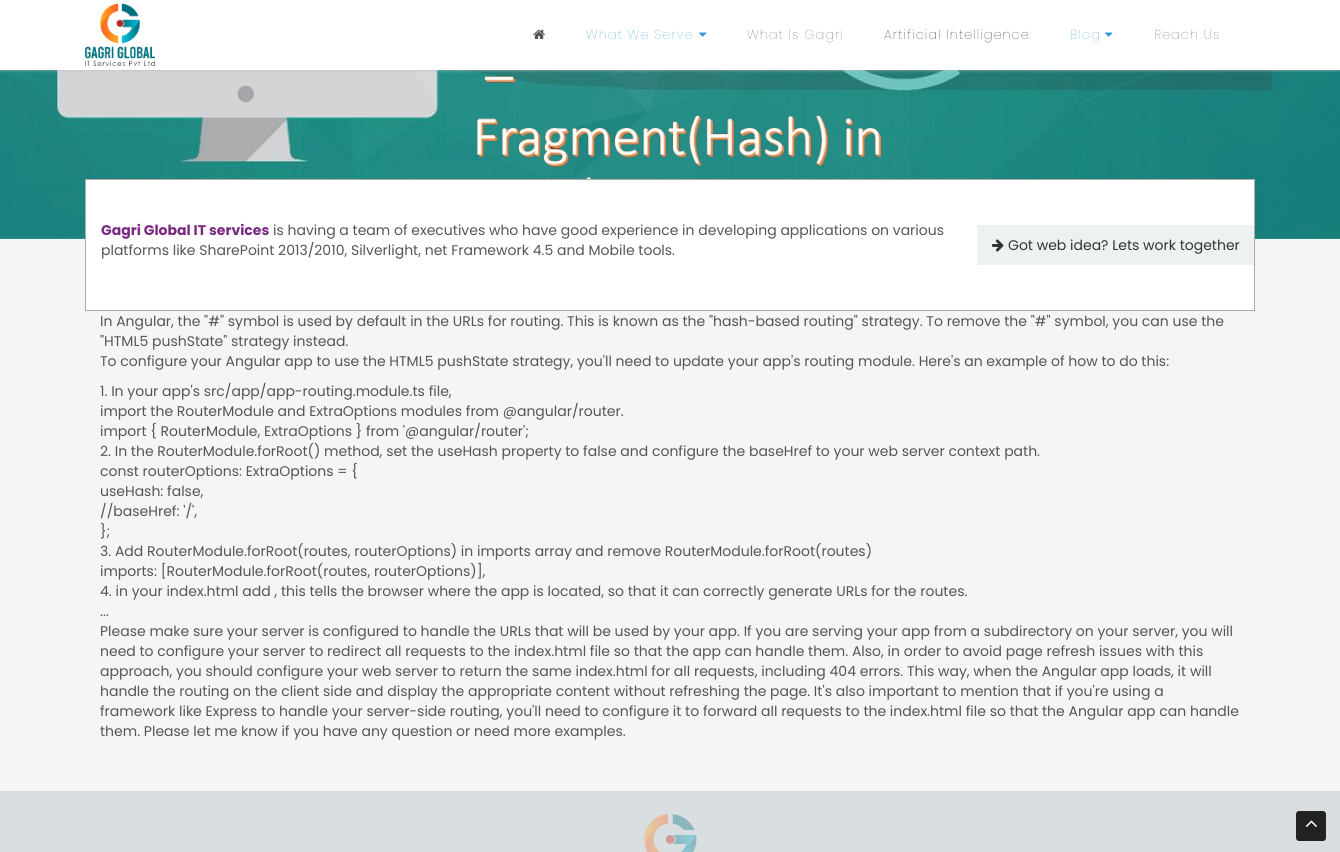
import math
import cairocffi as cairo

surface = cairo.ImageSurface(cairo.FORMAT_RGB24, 1340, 852)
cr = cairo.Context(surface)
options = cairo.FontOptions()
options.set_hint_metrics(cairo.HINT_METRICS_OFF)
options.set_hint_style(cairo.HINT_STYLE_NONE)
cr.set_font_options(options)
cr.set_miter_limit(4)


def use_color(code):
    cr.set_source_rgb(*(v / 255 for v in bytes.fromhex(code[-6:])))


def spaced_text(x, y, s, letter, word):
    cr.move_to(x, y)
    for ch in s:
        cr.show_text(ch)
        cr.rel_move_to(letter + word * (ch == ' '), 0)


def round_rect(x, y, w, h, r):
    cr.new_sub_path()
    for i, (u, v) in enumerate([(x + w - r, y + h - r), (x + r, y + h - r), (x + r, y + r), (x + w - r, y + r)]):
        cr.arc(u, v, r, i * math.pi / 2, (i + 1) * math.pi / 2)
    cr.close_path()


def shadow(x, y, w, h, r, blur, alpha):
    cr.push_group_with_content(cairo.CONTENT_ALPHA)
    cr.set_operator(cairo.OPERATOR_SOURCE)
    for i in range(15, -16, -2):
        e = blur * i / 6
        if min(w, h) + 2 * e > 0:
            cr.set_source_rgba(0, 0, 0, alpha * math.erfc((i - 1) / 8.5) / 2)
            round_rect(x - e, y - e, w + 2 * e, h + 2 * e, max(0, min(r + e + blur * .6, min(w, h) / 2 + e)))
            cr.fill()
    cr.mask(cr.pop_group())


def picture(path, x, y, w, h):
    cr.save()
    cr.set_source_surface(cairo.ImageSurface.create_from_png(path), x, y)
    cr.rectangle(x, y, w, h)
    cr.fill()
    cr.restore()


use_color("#f5f5f5")
cr.paint()
picture("img4.png", 0, 70, 1340, 169)
use_color("#bbbbbb")
shadow(0, 0, 1340, 70, 0, 1.5, 1)
use_color("#ffffff")
cr.rectangle(0, 0, 1340, 70)
cr.fill()
picture("img1.png", 85, 3, 70, 64)
picture("img2.png", 533, 29, 12, 10)
cr.select_font_face("Poppins ExtraLight")
cr.set_font_size(13)
use_color("#3498db")
spaced_text(586, 39, "What We Serve", 1, 0)
picture("img3.png", 699, 32, 8, 5)
use_color("#555555")
spaced_text(747, 39, "What Is Gagri", 1, 0)
use_color("#000000")
spaced_text(884, 39, "Artificial Intelligence", 1, 0)
use_color("#3498db")
spaced_text(1070, 39, "Blog", 1, 0)
picture("img3.png", 1105, 32, 8, 5)
use_color("#555555")
spaced_text(1154, 39, "Reach Us", 1, 0)
use_color("#ffffff")
cr.rectangle(85.5, 179.5, 1169, 131)
cr.fill_preserve()
use_color("#adadad")
cr.set_line_width(1)
cr.stroke()
cr.select_font_face("Poppins", cairo.FONT_SLANT_NORMAL, cairo.FONT_WEIGHT_BOLD)
cr.set_font_size(14)
use_color("#7a2982")
cr.move_to(101, 235)
cr.show_text("Gagri Global IT services")
cr.select_font_face("Poppins")
use_color("#555555")
cr.move_to(273, 235)
cr.show_text("is having a team of executives who have good experience in developing applications on various")
cr.move_to(101, 255)
cr.show_text("platforms like SharePoint 2013/2010, Silverlight, net Framework 4.5 and Mobile tools.")
use_color("#edf1f2")
cr.rectangle(977, 225, 277, 40)
cr.fill()
picture("img5.png", 992, 239, 12, 13)
use_color("#333333")
cr.move_to(1008, 250)
cr.show_text("Got web idea? Lets work together")
use_color("#555555")
cr.move_to(100, 326)
cr.show_text("In Angular, the \"#\" symbol is used by default in the URLs for routing. This is known as the \"hash-based routing\" strategy. To remove the \"#\" symbol, you can use the")
cr.move_to(100, 346)
cr.show_text("\"HTML5 pushState\" strategy instead.")
cr.move_to(100, 366)
cr.show_text("To configure your Angular app to use the HTML5 pushState strategy, you'll need to update your app's routing module. Here's an example of how to do this:")
cr.move_to(100, 396)
cr.show_text("1. In your app's src/app/app-routing.module.ts file,")
cr.move_to(100, 416)
cr.show_text("import the RouterModule and ExtraOptions modules from @angular/router.")
cr.move_to(100, 436)
cr.show_text("import { RouterModule, ExtraOptions } from '@angular/router';")
cr.move_to(100, 456)
cr.show_text("2. In the RouterModule.forRoot() method, set the useHash property to false and configure the baseHref to your web server context path.")
cr.move_to(100, 476)
cr.show_text("const routerOptions: ExtraOptions = {")
cr.move_to(100, 496)
cr.show_text("useHash: false,")
cr.move_to(100, 516)
cr.show_text("//baseHref: '/',")
cr.move_to(100, 536)
cr.show_text("};")
cr.move_to(100, 556)
cr.show_text("3. Add RouterModule.forRoot(routes, routerOptions) in imports array and remove RouterModule.forRoot(routes)")
cr.move_to(100, 576)
cr.show_text("imports: [RouterModule.forRoot(routes, routerOptions)],")
cr.move_to(100, 596)
cr.show_text("4. in your index.html add , this tells the browser where the app is located, so that it can correctly generate URLs for the routes.")
cr.move_to(100, 616)
cr.show_text("...")
cr.move_to(100, 636)
cr.show_text("Please make sure your server is configured to handle the URLs that will be used by your app. If you are serving your app from a subdirectory on your server, you will")
cr.move_to(100, 656)
cr.show_text("need to configure your server to redirect all requests to the index.html file so that the app can handle them. Also, in order to avoid page refresh issues with this")
cr.move_to(100, 676)
cr.show_text("approach, you should configure your web server to return the same index.html for all requests, including 404 errors. This way, when the Angular app loads, it will")
cr.move_to(100, 696)
cr.show_text("handle the routing on the client side and display the appropriate content without refreshing the page. It's also important to mention that if you're using a")
cr.move_to(100, 716)
cr.show_text("framework like Express to handle your server-side routing, you'll need to configure it to forward all requests to the index.html file so that the Angular app can handle")
cr.move_to(100, 736)
cr.show_text("them. Please let me know if you have any question or need more examples.")
use_color("#d9dee1")
cr.rectangle(0, 791, 1340, 61)
cr.fill()
picture("img6.png", 644, 814, 53, 38)
use_color("#222222")
round_rect(1296, 811, 30, 30, 3)
cr.fill()
picture("img7.png", 1305, 820, 12, 7)
surface.write_to_png("result.png")
